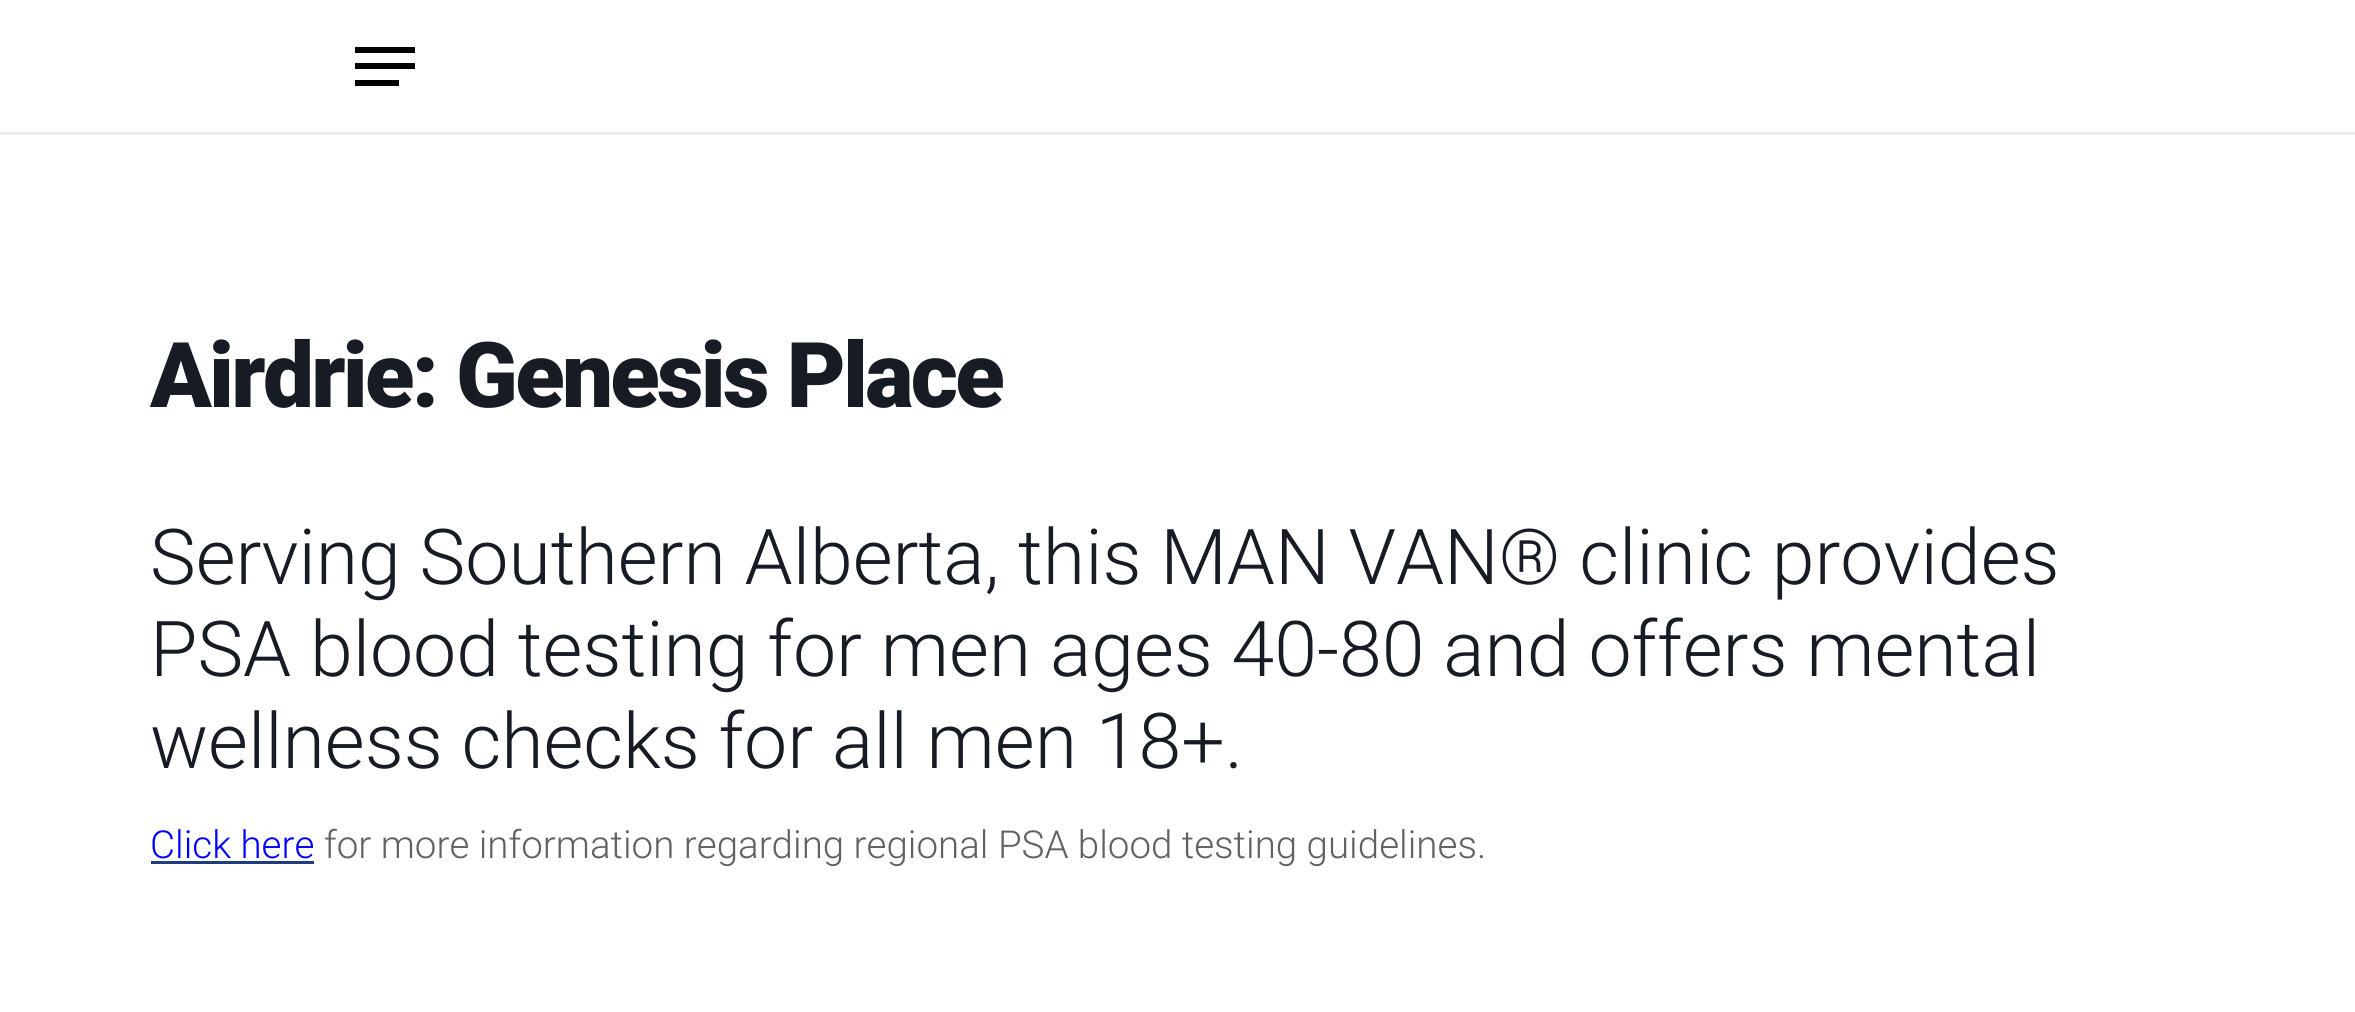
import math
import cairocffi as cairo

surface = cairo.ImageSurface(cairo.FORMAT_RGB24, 2355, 1012)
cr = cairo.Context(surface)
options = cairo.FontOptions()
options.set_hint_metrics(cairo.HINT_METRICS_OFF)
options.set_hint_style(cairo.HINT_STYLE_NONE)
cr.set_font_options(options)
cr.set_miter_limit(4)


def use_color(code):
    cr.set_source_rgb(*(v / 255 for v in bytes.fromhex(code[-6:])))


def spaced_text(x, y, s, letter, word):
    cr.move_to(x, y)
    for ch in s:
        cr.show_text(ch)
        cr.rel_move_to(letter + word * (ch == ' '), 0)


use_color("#ffffff")
cr.paint()
use_color("#ebebeb")
cr.new_path()
cr.move_to(0, 132)
cr.line_to(0, 135)
cr.line_to(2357, 135)
cr.line_to(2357, 3)
cr.line_to(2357, 132)
cr.close_path()
cr.fill()
use_color("#000000")
cr.rectangle(355, 47, 60, 6)
cr.fill()
cr.rectangle(355, 80, 44, 6)
cr.fill()
cr.rectangle(355, 63, 60, 6)
cr.fill()
cr.select_font_face("Roboto Black")
cr.set_font_size(90.75)
use_color("#171c24")
spaced_text(150, 407, "Airdrie: Genesis Place", -2.75, 0)
cr.select_font_face("Roboto Light")
cr.set_font_size(77)
cr.move_to(150, 584)
cr.show_text("Serving Southern Alberta, this MAN VAN® clinic provides")
cr.move_to(150, 676)
cr.show_text("PSA blood testing for men ages 40-80 and offers mental")
cr.move_to(150, 768)
cr.show_text("wellness checks for all men 18+.")
cr.set_font_size(38.5)
use_color("#0000ff")
cr.move_to(150, 858)
cr.show_text("Click here")
use_color("#1d3d7c")
cr.rectangle(151, 861, 163, 3)
cr.fill()
use_color("#616161")
cr.move_to(324, 858)
cr.show_text("for more information regarding regional PSA blood testing guidelines.")
surface.write_to_png("result.png")
